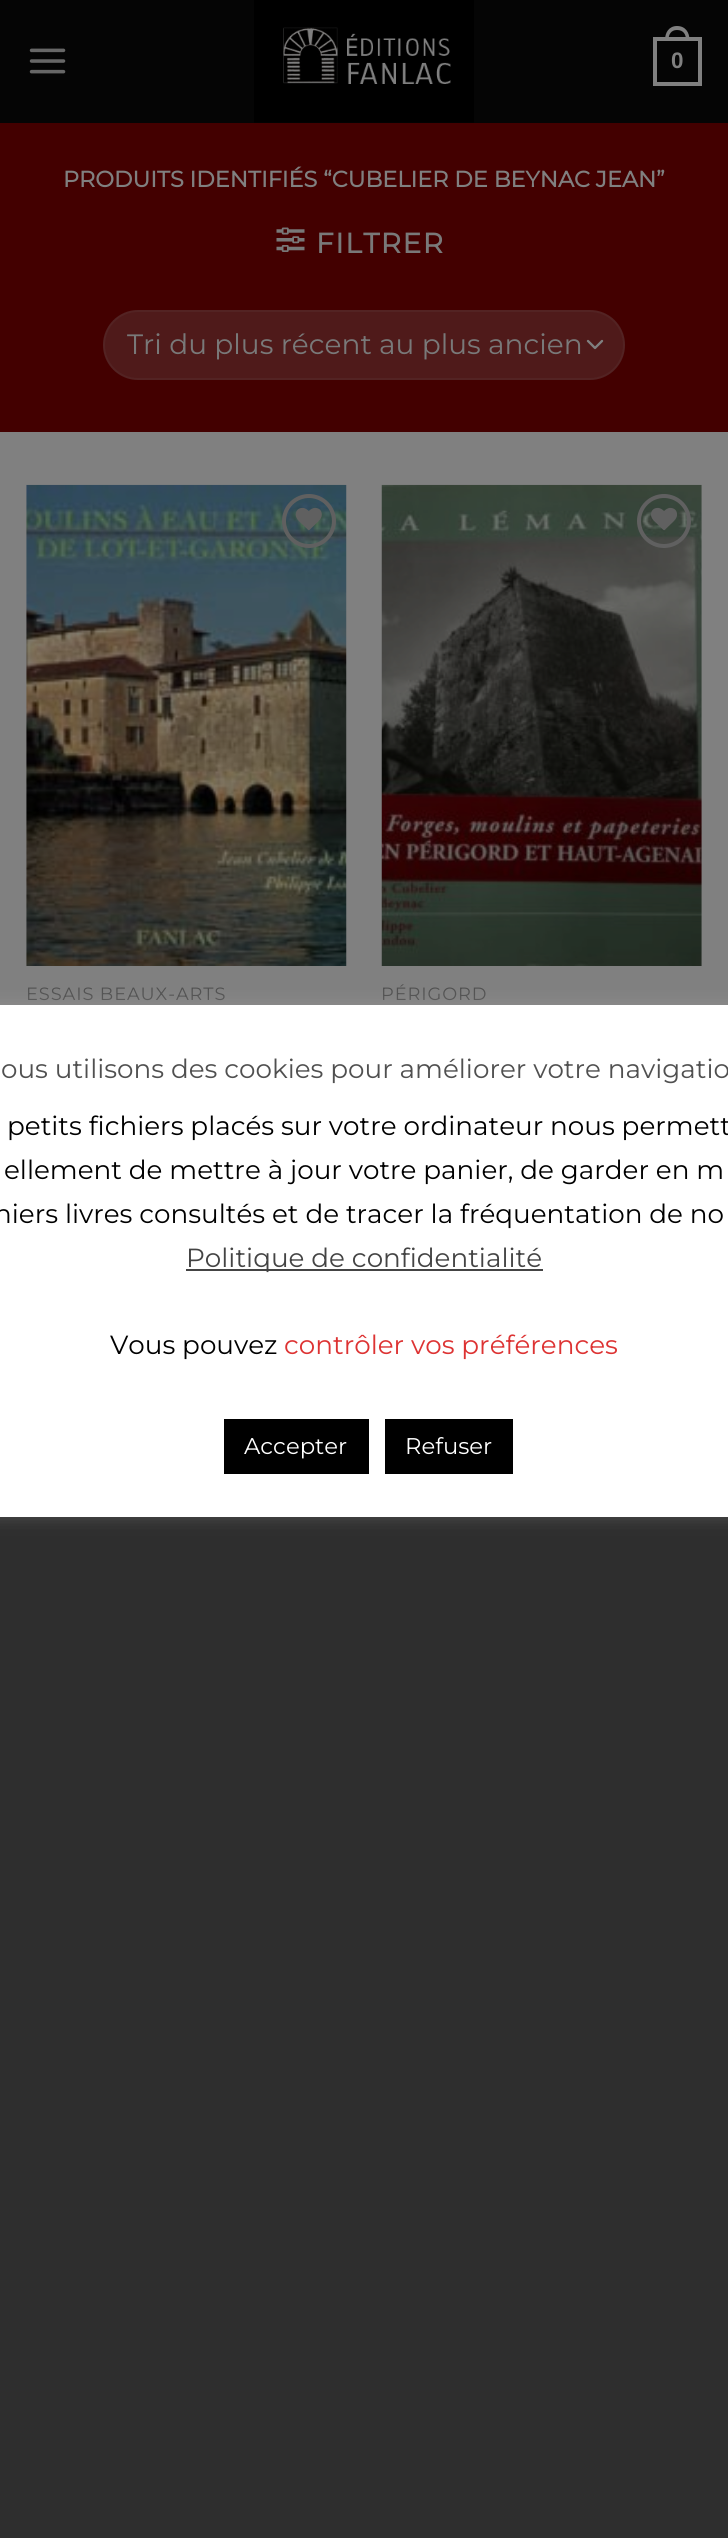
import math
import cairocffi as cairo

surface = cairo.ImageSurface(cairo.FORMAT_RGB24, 728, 2538)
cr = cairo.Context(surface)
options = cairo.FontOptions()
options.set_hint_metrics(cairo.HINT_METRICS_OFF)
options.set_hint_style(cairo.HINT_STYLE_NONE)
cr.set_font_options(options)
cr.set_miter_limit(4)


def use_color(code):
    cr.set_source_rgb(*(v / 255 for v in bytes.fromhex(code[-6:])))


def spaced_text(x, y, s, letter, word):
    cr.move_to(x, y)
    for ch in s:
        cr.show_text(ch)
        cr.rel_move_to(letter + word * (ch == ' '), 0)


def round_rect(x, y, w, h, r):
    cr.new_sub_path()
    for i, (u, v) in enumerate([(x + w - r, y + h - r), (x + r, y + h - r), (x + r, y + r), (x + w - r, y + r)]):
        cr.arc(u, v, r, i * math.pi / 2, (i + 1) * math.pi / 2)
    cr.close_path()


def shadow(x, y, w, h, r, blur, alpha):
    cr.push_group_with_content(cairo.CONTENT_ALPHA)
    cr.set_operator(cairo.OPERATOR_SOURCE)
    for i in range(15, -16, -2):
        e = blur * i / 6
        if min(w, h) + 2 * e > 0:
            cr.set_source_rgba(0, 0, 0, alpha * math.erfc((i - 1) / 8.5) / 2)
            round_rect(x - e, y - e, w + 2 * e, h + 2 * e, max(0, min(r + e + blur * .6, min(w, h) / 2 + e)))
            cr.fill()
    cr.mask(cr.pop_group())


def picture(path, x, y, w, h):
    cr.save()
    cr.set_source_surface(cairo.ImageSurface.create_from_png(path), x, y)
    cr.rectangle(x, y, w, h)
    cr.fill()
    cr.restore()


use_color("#2e2e2e")
cr.paint()
use_color("#808080")
cr.rectangle(0, 432, 728, 573)
cr.fill()
use_color("#050505")
cr.rectangle(0, 0, 728, 123)
cr.fill()
picture("img1.png", 29, 48, 37, 26)
picture("img2.png", 254, 0, 220, 123)
cr.rectangle(655, 39, 45, 45)
use_color("#808080")
cr.set_line_width(4)
cr.stroke()
cr.set_fill_rule(cairo.FILL_RULE_EVEN_ODD)
cr.new_path()
cr.move_to(677, 26)
cr.curve_to(685.5, 26, 689.5, 32.5, 689.5, 40)
cr.line_to(665, 40)
cr.curve_to(665, 32.5, 669, 26, 677, 26)
cr.close_path()
cr.move_to(677, 30)
cr.curve_to(683.5, 30, 686, 34.5, 686, 40)
cr.line_to(668.5, 40)
cr.curve_to(668.5, 34.5, 671, 30, 677, 30)
cr.close_path()
cr.fill()
cr.select_font_face("Liberation Sans", cairo.FONT_SLANT_NORMAL, cairo.FONT_WEIGHT_BOLD)
cr.set_font_size(22.4)
cr.move_to(671, 68)
cr.show_text("0")
use_color("#430000")
cr.rectangle(0, 123, 728, 309)
cr.fill()
cr.select_font_face("Montserrat", cairo.FONT_SLANT_NORMAL, cairo.FONT_WEIGHT_BOLD)
use_color("#808080")
cr.move_to(63, 187)
cr.show_text("PRODUITS IDENTIFIÉS “CUBELIER DE BEYNAC JEAN”")
picture("img3.png", 276, 227, 29, 25)
cr.set_font_size(28)
use_color("#797979")
spaced_text(316, 253, "FILTRER", 1.5, 0)
use_color("#4f1a1a")
round_rect(103, 310, 522, 70, 35)
cr.fill()
cr.new_path()
cr.move_to(588, 341)
cr.line_to(595, 348)
cr.line_to(602, 341)
use_color("#808080")
cr.set_line_width(2.3)
cr.set_line_cap(cairo.LINE_CAP_ROUND)
cr.set_line_join(cairo.LINE_JOIN_ROUND)
cr.stroke()
round_rect(104, 311, 520, 68, 34)
cr.set_source_rgba(0.502, 0.502, 0.502, 0.09)
cr.set_line_width(2)
cr.set_line_cap(cairo.LINE_CAP_BUTT)
cr.set_line_join(cairo.LINE_JOIN_MITER)
cr.stroke()
cr.select_font_face("Montserrat Thin")
use_color("#797979")
cr.move_to(127, 354)
cr.show_text("Tri du plus récent au plus ancien")
picture("img4.png", 26, 484, 321, 482)
cr.arc(309, 521, 25, 0, 2 * math.pi)
use_color("#606060")
cr.set_line_width(4)
cr.stroke()
picture("img5.png", 295, 507, 27, 24)
cr.set_font_size(17.8)
use_color("#505050")
spaced_text(26, 1000, "ESSAIS BEAUX-ARTS", 0.9, 0)
picture("img6.png", 381, 484, 321, 482)
cr.arc(664, 521, 25, 0, 2 * math.pi)
use_color("#606060")
cr.stroke()
picture("img7.png", 651, 507, 26, 24)
use_color("#505050")
spaced_text(381, 1000, "PÉRIGORD", 0.9, 0)
use_color("#acabab")
shadow(-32, 1003, 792, 513, 5, 9, 0.3)
use_color("#ffffff")
cr.rectangle(0, 1005, 728, 512)
cr.fill()
cr.set_font_size(26.25)
use_color("#505050")
cr.move_to(1, 1078)
cr.show_text("ous utilisons des cookies pour améliorer votre navigatio")
use_color("#000000")
cr.move_to(7, 1135)
cr.show_text("petits fichiers placés sur votre ordinateur nous permett")
cr.move_to(4, 1179)
cr.show_text("ellement de mettre à jour votre panier, de garder en m")
cr.move_to(-6, 1223)
cr.show_text("niers livres consultés et de tracer la fréquentation de no")
use_color("#444444")
cr.rectangle(186, 1269, 357, 2)
cr.fill()
cr.move_to(186, 1267)
cr.show_text("Politique de confidentialité")
use_color("#000000")
cr.move_to(110, 1354)
cr.show_text("Vous pouvez")
use_color("#dd3333")
cr.move_to(284, 1354)
cr.show_text("contrôler vos préférences")
use_color("#000000")
cr.rectangle(224, 1419, 145, 55)
cr.fill()
cr.set_font_size(22.75)
use_color("#ffffff")
cr.move_to(244, 1454)
cr.show_text("Accepter")
use_color("#000000")
cr.rectangle(385, 1419, 128, 55)
cr.fill()
use_color("#ffffff")
cr.move_to(405, 1454)
cr.show_text("Refuser")
surface.write_to_png("result.png")
